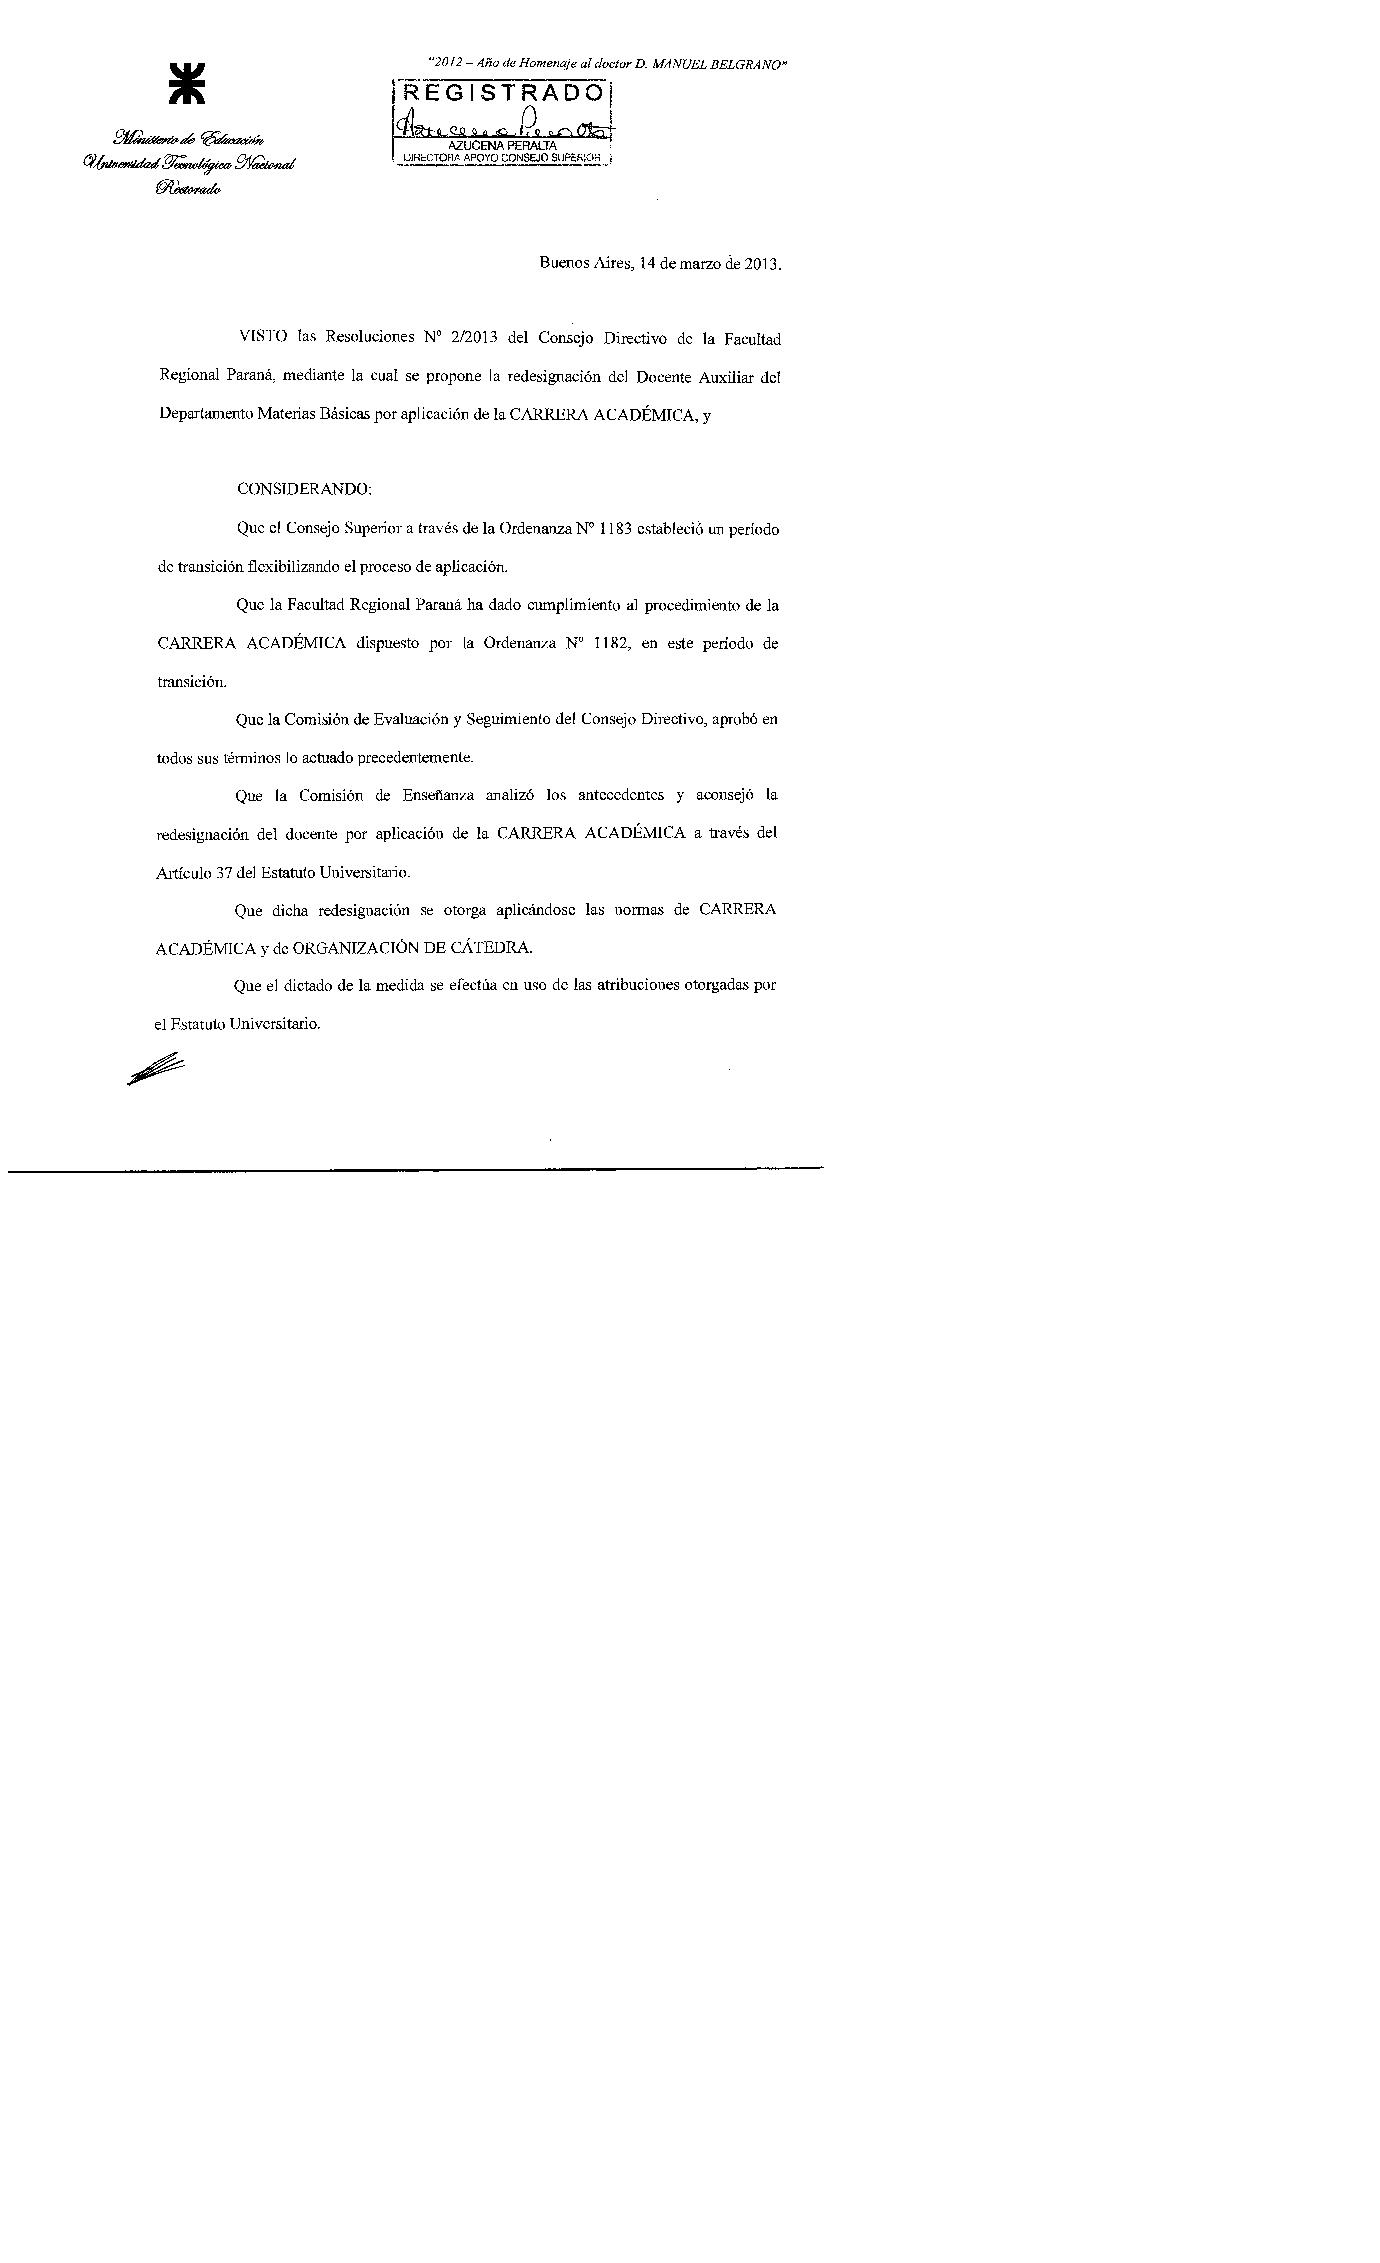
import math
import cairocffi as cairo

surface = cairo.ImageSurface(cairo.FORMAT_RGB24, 1380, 2263)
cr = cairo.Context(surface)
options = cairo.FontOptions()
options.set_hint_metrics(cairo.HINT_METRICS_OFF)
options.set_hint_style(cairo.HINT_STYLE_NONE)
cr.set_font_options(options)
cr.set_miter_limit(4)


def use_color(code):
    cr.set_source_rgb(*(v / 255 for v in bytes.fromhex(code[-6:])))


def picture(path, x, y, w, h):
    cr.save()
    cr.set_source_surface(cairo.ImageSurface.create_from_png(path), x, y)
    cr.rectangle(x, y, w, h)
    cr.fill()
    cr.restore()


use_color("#ffffff")
cr.paint()
picture("img1.png", 8, 56, 816, 1119)
surface.write_to_png("result.png")
